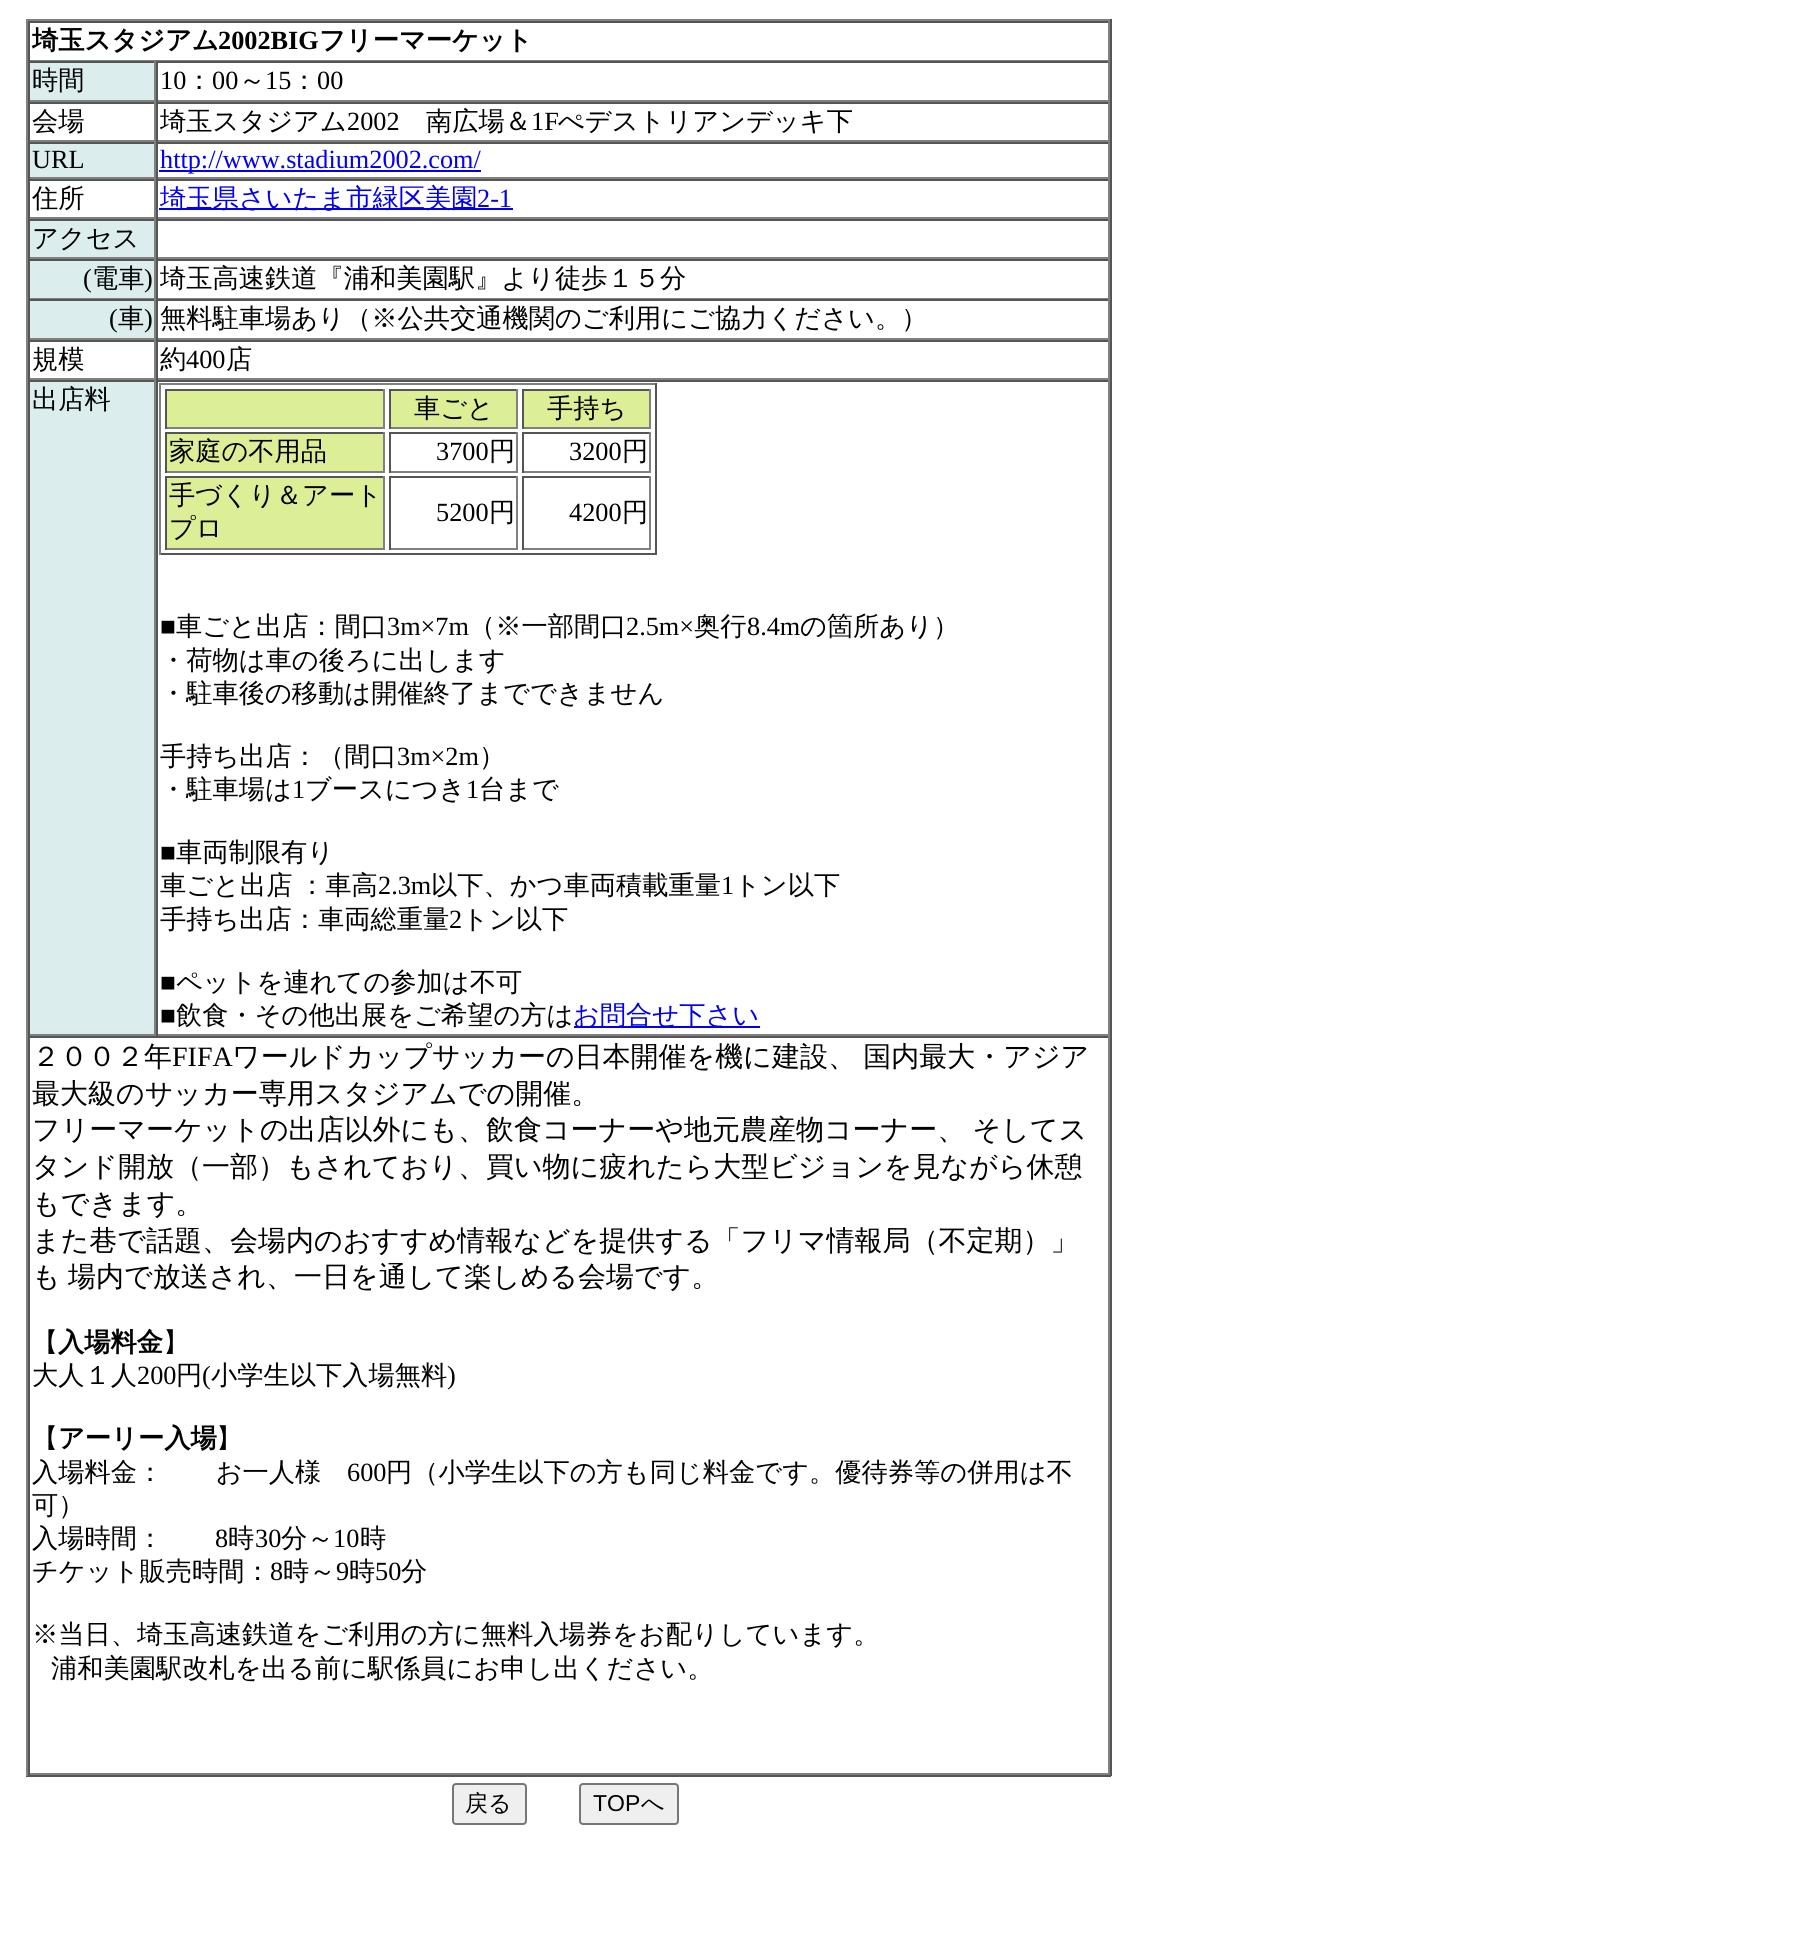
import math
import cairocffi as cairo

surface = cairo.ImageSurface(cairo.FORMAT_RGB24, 1804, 1949)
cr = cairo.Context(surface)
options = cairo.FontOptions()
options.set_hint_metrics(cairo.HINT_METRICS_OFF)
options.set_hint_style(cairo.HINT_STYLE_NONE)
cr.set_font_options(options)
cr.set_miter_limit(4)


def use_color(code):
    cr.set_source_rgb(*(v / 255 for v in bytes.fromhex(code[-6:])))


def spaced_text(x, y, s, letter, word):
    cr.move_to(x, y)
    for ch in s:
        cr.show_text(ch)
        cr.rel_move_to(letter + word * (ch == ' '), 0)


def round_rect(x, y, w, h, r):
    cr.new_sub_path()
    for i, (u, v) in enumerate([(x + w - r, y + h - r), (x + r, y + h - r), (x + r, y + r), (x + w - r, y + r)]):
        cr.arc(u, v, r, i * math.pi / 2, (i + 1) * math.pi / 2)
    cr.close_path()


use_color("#ffffff")
cr.paint()
use_color("#808080")
cr.rectangle(26, 19, 1085, 2)
cr.fill()
use_color("#555555")
cr.rectangle(1110, 19, 2, 1757)
cr.fill()
cr.rectangle(26, 1775, 1085, 2)
cr.fill()
use_color("#808080")
cr.rectangle(26, 19, 2, 1757)
cr.fill()
use_color("#555555")
cr.rectangle(28, 21, 1082, 2)
cr.fill()
use_color("#808080")
cr.rectangle(1108, 21, 2, 40)
cr.fill()
cr.rectangle(28, 60, 1082, 1)
cr.fill()
use_color("#555555")
cr.rectangle(28, 21, 2, 40)
cr.fill()
cr.select_font_face("WenQuanYi Zen Hei", cairo.FONT_SLANT_NORMAL, cairo.FONT_WEIGHT_BOLD)
cr.set_font_size(26.25)
use_color("#000000")
cr.move_to(32, 49)
cr.show_text("埼玉スタジアム")
cr.select_font_face("Liberation Serif", cairo.FONT_SLANT_NORMAL, cairo.FONT_WEIGHT_BOLD)
cr.move_to(218, 49)
cr.show_text("2002BIG")
cr.select_font_face("WenQuanYi Zen Hei", cairo.FONT_SLANT_NORMAL, cairo.FONT_WEIGHT_BOLD)
cr.move_to(319, 49)
cr.show_text("フリーマーケット")
use_color("#dceded")
cr.rectangle(30, 63, 124, 37)
cr.fill()
use_color("#555555")
cr.rectangle(28, 61, 1082, 2)
cr.fill()
use_color("#808080")
cr.rectangle(154, 61, 2, 41)
cr.fill()
cr.rectangle(28, 100, 128, 2)
cr.fill()
use_color("#555555")
cr.rectangle(28, 61, 2, 41)
cr.fill()
cr.select_font_face("WenQuanYi Zen Hei Medium")
use_color("#000000")
cr.move_to(32, 89)
cr.show_text("時間")
use_color("#808080")
cr.rectangle(1108, 61, 2, 41)
cr.fill()
cr.rectangle(156, 100, 954, 2)
cr.fill()
use_color("#555555")
cr.rectangle(156, 61, 2, 41)
cr.fill()
cr.select_font_face("Liberation Serif")
use_color("#000000")
cr.move_to(160, 89)
cr.show_text("10")
cr.select_font_face("WenQuanYi Zen Hei Medium")
cr.move_to(186, 89)
cr.show_text("：")
cr.select_font_face("Liberation Serif")
cr.move_to(212, 89)
cr.show_text("00")
cr.select_font_face("WenQuanYi Zen Hei Medium")
cr.move_to(239, 89)
cr.show_text("～")
cr.select_font_face("Liberation Serif")
cr.move_to(265, 89)
cr.show_text("15")
cr.select_font_face("WenQuanYi Zen Hei Medium")
cr.move_to(291, 89)
cr.show_text("：")
cr.select_font_face("Liberation Serif")
cr.move_to(317, 89)
cr.show_text("00")
use_color("#555555")
cr.rectangle(28, 102, 1082, 2)
cr.fill()
use_color("#808080")
cr.rectangle(154, 102, 2, 40)
cr.fill()
cr.rectangle(28, 140, 128, 2)
cr.fill()
use_color("#555555")
cr.rectangle(28, 102, 2, 40)
cr.fill()
cr.select_font_face("WenQuanYi Zen Hei Medium")
use_color("#000000")
cr.move_to(32, 130)
cr.show_text("会場")
use_color("#808080")
cr.rectangle(1108, 102, 2, 40)
cr.fill()
cr.rectangle(156, 140, 954, 2)
cr.fill()
use_color("#555555")
cr.rectangle(156, 102, 2, 40)
cr.fill()
use_color("#000000")
cr.move_to(160, 130)
cr.show_text("埼玉スタジアム")
cr.select_font_face("Liberation Serif")
cr.move_to(347, 130)
cr.show_text("2002")
cr.select_font_face("WenQuanYi Zen Hei Medium")
cr.move_to(426, 130)
cr.show_text("南広場＆")
cr.select_font_face("Liberation Serif")
cr.move_to(531, 130)
cr.show_text("1F")
cr.select_font_face("WenQuanYi Zen Hei Medium")
cr.move_to(558, 130)
cr.show_text("ぺデストリアンデッキ下")
use_color("#dceded")
cr.rectangle(30, 144, 124, 33)
cr.fill()
use_color("#555555")
cr.rectangle(28, 142, 1082, 2)
cr.fill()
use_color("#808080")
cr.rectangle(154, 142, 2, 37)
cr.fill()
cr.rectangle(28, 177, 128, 2)
cr.fill()
use_color("#555555")
cr.rectangle(28, 142, 2, 37)
cr.fill()
cr.select_font_face("Liberation Serif")
use_color("#000000")
cr.move_to(32, 168)
cr.show_text("URL")
use_color("#808080")
cr.rectangle(1108, 142, 2, 37)
cr.fill()
cr.rectangle(156, 177, 954, 2)
cr.fill()
use_color("#555555")
cr.rectangle(156, 142, 2, 37)
cr.fill()
use_color("#0000ee")
cr.rectangle(159, 170, 322, 2)
cr.fill()
cr.move_to(160, 168)
cr.show_text("http://www.stadium2002.com/")
use_color("#555555")
cr.rectangle(28, 179, 1082, 2)
cr.fill()
use_color("#808080")
cr.rectangle(154, 179, 2, 40)
cr.fill()
cr.rectangle(28, 217, 128, 2)
cr.fill()
use_color("#555555")
cr.rectangle(28, 179, 2, 40)
cr.fill()
cr.select_font_face("WenQuanYi Zen Hei Medium")
use_color("#000000")
cr.move_to(32, 207)
cr.show_text("住所")
use_color("#808080")
cr.rectangle(1108, 179, 2, 40)
cr.fill()
cr.rectangle(156, 217, 954, 2)
cr.fill()
use_color("#555555")
cr.rectangle(156, 179, 2, 40)
cr.fill()
use_color("#0000ee")
cr.rectangle(159, 208, 354, 2)
cr.fill()
cr.move_to(160, 207)
cr.show_text("埼玉県さいたま市緑区美園")
cr.select_font_face("Liberation Serif")
cr.move_to(477, 207)
cr.show_text("2-1")
use_color("#dceded")
cr.rectangle(30, 221, 124, 36)
cr.fill()
use_color("#555555")
cr.rectangle(28, 219, 1082, 2)
cr.fill()
use_color("#808080")
cr.rectangle(154, 219, 2, 40)
cr.fill()
cr.rectangle(28, 257, 128, 2)
cr.fill()
use_color("#555555")
cr.rectangle(28, 219, 2, 40)
cr.fill()
cr.select_font_face("WenQuanYi Zen Hei Medium")
use_color("#000000")
cr.move_to(32, 247)
cr.show_text("アクセス")
use_color("#808080")
cr.rectangle(1108, 219, 2, 40)
cr.fill()
cr.rectangle(156, 257, 954, 2)
cr.fill()
use_color("#555555")
cr.rectangle(156, 219, 2, 40)
cr.fill()
use_color("#dceded")
cr.rectangle(30, 261, 124, 37)
cr.fill()
use_color("#555555")
cr.rectangle(28, 259, 1082, 2)
cr.fill()
use_color("#808080")
cr.rectangle(154, 259, 2, 40)
cr.fill()
cr.rectangle(28, 298, 128, 1)
cr.fill()
use_color("#555555")
cr.rectangle(28, 259, 2, 40)
cr.fill()
cr.select_font_face("Liberation Serif")
use_color("#000000")
cr.move_to(83, 287)
cr.show_text("(")
cr.select_font_face("WenQuanYi Zen Hei Medium")
cr.move_to(92, 287)
cr.show_text("電車")
cr.select_font_face("Liberation Serif")
cr.move_to(144, 287)
cr.show_text(")")
use_color("#808080")
cr.rectangle(1108, 259, 2, 40)
cr.fill()
cr.rectangle(156, 298, 954, 1)
cr.fill()
use_color("#555555")
cr.rectangle(156, 259, 2, 40)
cr.fill()
cr.select_font_face("WenQuanYi Zen Hei Medium")
use_color("#000000")
cr.move_to(160, 287)
cr.show_text("埼玉高速鉄道『浦和美園駅』より徒歩１５分")
use_color("#dceded")
cr.rectangle(30, 301, 124, 37)
cr.fill()
use_color("#555555")
cr.rectangle(28, 299, 1082, 2)
cr.fill()
use_color("#808080")
cr.rectangle(154, 299, 2, 41)
cr.fill()
cr.rectangle(28, 338, 128, 2)
cr.fill()
use_color("#555555")
cr.rectangle(28, 299, 2, 41)
cr.fill()
cr.select_font_face("Liberation Serif")
use_color("#000000")
cr.move_to(109, 327)
cr.show_text("(")
cr.select_font_face("WenQuanYi Zen Hei Medium")
cr.move_to(118, 327)
cr.show_text("車")
cr.select_font_face("Liberation Serif")
cr.move_to(144, 327)
cr.show_text(")")
use_color("#808080")
cr.rectangle(1108, 299, 2, 41)
cr.fill()
cr.rectangle(156, 338, 954, 2)
cr.fill()
use_color("#555555")
cr.rectangle(156, 299, 2, 41)
cr.fill()
cr.select_font_face("WenQuanYi Zen Hei Medium")
use_color("#000000")
cr.move_to(160, 327)
cr.show_text("無料駐車場あり（※公共交通機関のご利用にご協力ください。）")
use_color("#555555")
cr.rectangle(28, 340, 1082, 2)
cr.fill()
use_color("#808080")
cr.rectangle(154, 340, 2, 40)
cr.fill()
cr.rectangle(28, 378, 128, 2)
cr.fill()
use_color("#555555")
cr.rectangle(28, 340, 2, 40)
cr.fill()
use_color("#000000")
cr.move_to(32, 368)
cr.show_text("規模")
use_color("#808080")
cr.rectangle(1108, 340, 2, 40)
cr.fill()
cr.rectangle(156, 378, 954, 2)
cr.fill()
use_color("#555555")
cr.rectangle(156, 340, 2, 40)
cr.fill()
use_color("#000000")
cr.move_to(160, 368)
cr.show_text("約")
cr.select_font_face("Liberation Serif")
cr.move_to(186, 368)
cr.show_text("400")
cr.select_font_face("WenQuanYi Zen Hei Medium")
cr.move_to(226, 368)
cr.show_text("店")
use_color("#dceded")
cr.rectangle(30, 382, 124, 652)
cr.fill()
use_color("#555555")
cr.rectangle(28, 380, 1082, 2)
cr.fill()
use_color("#808080")
cr.rectangle(154, 380, 2, 656)
cr.fill()
cr.rectangle(28, 1034, 128, 2)
cr.fill()
use_color("#555555")
cr.rectangle(28, 380, 2, 656)
cr.fill()
use_color("#000000")
cr.move_to(32, 408)
cr.show_text("出店料")
use_color("#808080")
cr.rectangle(1108, 380, 2, 656)
cr.fill()
cr.rectangle(156, 1034, 954, 2)
cr.fill()
use_color("#555555")
cr.rectangle(156, 380, 2, 656)
cr.fill()
use_color("#808080")
cr.rectangle(159, 383, 497, 2)
cr.fill()
use_color("#555555")
cr.rectangle(655, 383, 2, 172)
cr.fill()
cr.rectangle(159, 553, 497, 2)
cr.fill()
use_color("#808080")
cr.rectangle(159, 383, 2, 172)
cr.fill()
use_color("#ddef96")
cr.rectangle(167, 391, 216, 36)
cr.fill()
use_color("#555555")
cr.rectangle(165, 389, 220, 2)
cr.fill()
use_color("#808080")
cr.rectangle(383, 389, 2, 40)
cr.fill()
cr.rectangle(165, 427, 220, 2)
cr.fill()
use_color("#555555")
cr.rectangle(165, 389, 2, 40)
cr.fill()
use_color("#ddef96")
cr.rectangle(391, 391, 125, 36)
cr.fill()
use_color("#555555")
cr.rectangle(389, 389, 129, 2)
cr.fill()
use_color("#808080")
cr.rectangle(516, 389, 2, 40)
cr.fill()
cr.rectangle(389, 427, 129, 2)
cr.fill()
use_color("#555555")
cr.rectangle(389, 389, 2, 40)
cr.fill()
use_color("#000000")
cr.move_to(414, 417)
cr.show_text("車ごと")
use_color("#ddef96")
cr.rectangle(524, 391, 125, 36)
cr.fill()
use_color("#555555")
cr.rectangle(522, 389, 129, 2)
cr.fill()
use_color("#808080")
cr.rectangle(649, 389, 2, 40)
cr.fill()
cr.rectangle(522, 427, 129, 2)
cr.fill()
use_color("#555555")
cr.rectangle(522, 389, 2, 40)
cr.fill()
use_color("#000000")
cr.move_to(547, 417)
cr.show_text("手持ち")
use_color("#ddef96")
cr.rectangle(167, 434, 216, 37)
cr.fill()
use_color("#555555")
cr.rectangle(165, 432, 220, 2)
cr.fill()
use_color("#808080")
cr.rectangle(383, 432, 2, 41)
cr.fill()
cr.rectangle(165, 471, 220, 2)
cr.fill()
use_color("#555555")
cr.rectangle(165, 432, 2, 41)
cr.fill()
use_color("#000000")
cr.move_to(169, 460)
cr.show_text("家庭の不用品")
use_color("#555555")
cr.rectangle(389, 432, 129, 2)
cr.fill()
use_color("#808080")
cr.rectangle(516, 432, 2, 41)
cr.fill()
cr.rectangle(389, 471, 129, 2)
cr.fill()
use_color("#555555")
cr.rectangle(389, 432, 2, 41)
cr.fill()
cr.select_font_face("Liberation Serif")
use_color("#000000")
cr.move_to(436, 460)
cr.show_text("3700")
cr.select_font_face("WenQuanYi Zen Hei Medium")
cr.move_to(489, 460)
cr.show_text("円")
use_color("#555555")
cr.rectangle(522, 432, 129, 2)
cr.fill()
use_color("#808080")
cr.rectangle(649, 432, 2, 41)
cr.fill()
cr.rectangle(522, 471, 129, 2)
cr.fill()
use_color("#555555")
cr.rectangle(522, 432, 2, 41)
cr.fill()
cr.select_font_face("Liberation Serif")
use_color("#000000")
cr.move_to(569, 460)
cr.show_text("3200")
cr.select_font_face("WenQuanYi Zen Hei Medium")
cr.move_to(622, 460)
cr.show_text("円")
use_color("#ddef96")
cr.rectangle(167, 478, 216, 70)
cr.fill()
use_color("#555555")
cr.rectangle(165, 476, 220, 2)
cr.fill()
use_color("#808080")
cr.rectangle(383, 476, 2, 74)
cr.fill()
cr.rectangle(165, 548, 220, 2)
cr.fill()
use_color("#555555")
cr.rectangle(165, 476, 2, 74)
cr.fill()
use_color("#000000")
cr.move_to(169, 504)
cr.show_text("手づくり＆アート")
cr.move_to(169, 537)
cr.show_text("プロ")
use_color("#555555")
cr.rectangle(389, 476, 129, 2)
cr.fill()
use_color("#808080")
cr.rectangle(516, 476, 2, 74)
cr.fill()
cr.rectangle(389, 548, 129, 2)
cr.fill()
use_color("#555555")
cr.rectangle(389, 476, 2, 74)
cr.fill()
cr.select_font_face("Liberation Serif")
use_color("#000000")
cr.move_to(436, 521)
cr.show_text("5200")
cr.select_font_face("WenQuanYi Zen Hei Medium")
cr.move_to(489, 521)
cr.show_text("円")
use_color("#555555")
cr.rectangle(522, 476, 129, 2)
cr.fill()
use_color("#808080")
cr.rectangle(649, 476, 2, 74)
cr.fill()
cr.rectangle(522, 548, 129, 2)
cr.fill()
use_color("#555555")
cr.rectangle(522, 476, 2, 74)
cr.fill()
cr.select_font_face("Liberation Serif")
use_color("#000000")
cr.move_to(569, 521)
cr.show_text("4200")
cr.select_font_face("WenQuanYi Zen Hei Medium")
cr.move_to(622, 521)
cr.show_text("円")
cr.select_font_face("Liberation Serif")
cr.move_to(160, 635)
cr.show_text("■")
cr.select_font_face("WenQuanYi Zen Hei Medium")
cr.move_to(176, 635)
cr.show_text("車ごと出店：間口")
cr.select_font_face("Liberation Serif")
cr.move_to(387, 635)
cr.show_text("3m×7m")
cr.select_font_face("WenQuanYi Zen Hei Medium")
cr.move_to(469, 635)
cr.show_text("（※一部間口")
cr.select_font_face("Liberation Serif")
cr.move_to(626, 635)
cr.show_text("2.5m×")
cr.select_font_face("WenQuanYi Zen Hei Medium")
cr.move_to(694, 635)
cr.show_text("奥行")
cr.select_font_face("Liberation Serif")
cr.move_to(747, 635)
cr.show_text("8.4m")
cr.select_font_face("WenQuanYi Zen Hei Medium")
cr.move_to(800, 635)
cr.show_text("の箇所あり）")
cr.move_to(160, 669)
cr.show_text("・荷物は車の後ろに出します")
cr.move_to(160, 702)
cr.show_text("・駐車後の移動は開催終了までできません")
cr.move_to(160, 765)
cr.show_text("手持ち出店：（間口")
cr.select_font_face("Liberation Serif")
cr.move_to(397, 765)
cr.show_text("3m×2m")
cr.select_font_face("WenQuanYi Zen Hei Medium")
cr.move_to(479, 765)
cr.show_text("）")
cr.move_to(160, 798)
cr.show_text("・駐車場は")
cr.select_font_face("Liberation Serif")
cr.move_to(292, 798)
cr.show_text("1")
cr.select_font_face("WenQuanYi Zen Hei Medium")
cr.move_to(305, 798)
cr.show_text("ブースにつき")
cr.select_font_face("Liberation Serif")
cr.move_to(466, 798)
cr.show_text("1")
cr.select_font_face("WenQuanYi Zen Hei Medium")
cr.move_to(479, 798)
cr.show_text("台まで")
cr.select_font_face("Liberation Serif")
cr.move_to(160, 861)
cr.show_text("■")
cr.select_font_face("WenQuanYi Zen Hei Medium")
cr.move_to(176, 861)
cr.show_text("車両制限有り")
cr.move_to(160, 894)
cr.show_text("車ごと出店")
cr.move_to(299, 894)
cr.show_text("：車高")
cr.select_font_face("Liberation Serif")
cr.move_to(378, 894)
cr.show_text("2.3m")
cr.select_font_face("WenQuanYi Zen Hei Medium")
cr.move_to(431, 894)
cr.show_text("以下、かつ車両積載重量")
cr.select_font_face("Liberation Serif")
cr.move_to(721, 894)
cr.show_text("1")
cr.select_font_face("WenQuanYi Zen Hei Medium")
cr.move_to(734, 894)
cr.show_text("トン以下")
cr.move_to(160, 928)
cr.show_text("手持ち出店：車両総重量")
cr.select_font_face("Liberation Serif")
cr.move_to(449, 928)
cr.show_text("2")
cr.select_font_face("WenQuanYi Zen Hei Medium")
cr.move_to(462, 928)
cr.show_text("トン以下")
cr.select_font_face("Liberation Serif")
cr.move_to(160, 991)
cr.show_text("■")
cr.select_font_face("WenQuanYi Zen Hei Medium")
cr.move_to(176, 991)
cr.show_text("ペットを連れての参加は不可")
cr.select_font_face("Liberation Serif")
cr.move_to(160, 1024)
cr.show_text("■")
cr.select_font_face("WenQuanYi Zen Hei Medium")
cr.move_to(176, 1024)
cr.show_text("飲食・その他出展をご希望の方は")
use_color("#0000ee")
cr.rectangle(574, 1026, 186, 2)
cr.fill()
cr.move_to(573, 1024)
cr.show_text("お問合せ下さい")
use_color("#555555")
cr.rectangle(28, 1036, 1082, 2)
cr.fill()
use_color("#808080")
cr.rectangle(1108, 1036, 2, 739)
cr.fill()
cr.rectangle(28, 1773, 1082, 2)
cr.fill()
use_color("#555555")
cr.rectangle(28, 1036, 2, 739)
cr.fill()
cr.set_font_size(28)
use_color("#000000")
cr.move_to(32, 1066)
cr.show_text("２００２年")
cr.select_font_face("Liberation Serif")
cr.move_to(172, 1066)
cr.show_text("FIFA")
cr.select_font_face("WenQuanYi Zen Hei Medium")
spaced_text(232, 1066, "ワールドカップサッカーの日本開催を機に建設、 国内最大・アジア", 0, -1)
cr.move_to(32, 1103)
cr.show_text("最大級のサッカー専用スタジアムでの開催。")
spaced_text(32, 1139, "フリーマーケットの出店以外にも、飲食コーナーや地元農産物コーナー、 そしてス", 0, -1)
cr.move_to(32, 1176)
cr.show_text("タンド開放（一部）もされており、買い物に疲れたら大型ビジョンを見ながら休憩")
cr.move_to(32, 1213)
cr.show_text("もできます。")
cr.move_to(32, 1250)
cr.show_text("また巷で話題、会場内のおすすめ情報などを提供する「フリマ情報局（不定期）」")
spaced_text(32, 1286, "も 場内で放送され、一日を通して楽しめる会場です。", 0, -1)
cr.set_font_size(26.25)
cr.move_to(32, 1351)
cr.show_text("【")
cr.select_font_face("WenQuanYi Zen Hei", cairo.FONT_SLANT_NORMAL, cairo.FONT_WEIGHT_BOLD)
cr.move_to(58, 1351)
cr.show_text("入場料金")
cr.select_font_face("WenQuanYi Zen Hei Medium")
cr.move_to(163, 1351)
cr.show_text("】")
cr.move_to(32, 1384)
cr.show_text("大人１人")
cr.select_font_face("Liberation Serif")
cr.move_to(137, 1384)
cr.show_text("200")
cr.select_font_face("WenQuanYi Zen Hei Medium")
cr.move_to(176, 1384)
cr.show_text("円")
cr.select_font_face("Liberation Serif")
cr.move_to(202, 1384)
cr.show_text("(")
cr.select_font_face("WenQuanYi Zen Hei Medium")
cr.move_to(211, 1384)
cr.show_text("小学生以下入場無料")
cr.select_font_face("Liberation Serif")
cr.move_to(447, 1384)
cr.show_text(")")
cr.select_font_face("WenQuanYi Zen Hei Medium")
cr.move_to(32, 1447)
cr.show_text("【")
cr.select_font_face("WenQuanYi Zen Hei", cairo.FONT_SLANT_NORMAL, cairo.FONT_WEIGHT_BOLD)
cr.move_to(58, 1447)
cr.show_text("アーリー入場")
cr.select_font_face("WenQuanYi Zen Hei Medium")
cr.move_to(216, 1447)
cr.show_text("】")
cr.move_to(32, 1481)
cr.show_text("入場料金：　　お一人様")
cr.select_font_face("Liberation Serif")
cr.move_to(347, 1481)
cr.show_text("600")
cr.select_font_face("WenQuanYi Zen Hei Medium")
cr.move_to(386, 1481)
cr.show_text("円（小学生以下の方も同じ料金です。優待券等の併用は不")
cr.move_to(32, 1514)
cr.show_text("可）")
cr.move_to(32, 1547)
cr.show_text("入場時間：")
cr.select_font_face("Liberation Serif")
cr.move_to(215, 1547)
cr.show_text("8")
cr.select_font_face("WenQuanYi Zen Hei Medium")
cr.move_to(228, 1547)
cr.show_text("時")
cr.select_font_face("Liberation Serif")
cr.move_to(255, 1547)
cr.show_text("30")
cr.select_font_face("WenQuanYi Zen Hei Medium")
cr.move_to(281, 1547)
cr.show_text("分～")
cr.select_font_face("Liberation Serif")
cr.move_to(333, 1547)
cr.show_text("10")
cr.select_font_face("WenQuanYi Zen Hei Medium")
cr.move_to(360, 1547)
cr.show_text("時")
cr.move_to(32, 1580)
cr.show_text("チケット販売時間：")
cr.select_font_face("Liberation Serif")
cr.move_to(270, 1580)
cr.show_text("8")
cr.select_font_face("WenQuanYi Zen Hei Medium")
cr.move_to(283, 1580)
cr.show_text("時～")
cr.select_font_face("Liberation Serif")
cr.move_to(336, 1580)
cr.show_text("9")
cr.select_font_face("WenQuanYi Zen Hei Medium")
cr.move_to(349, 1580)
cr.show_text("時")
cr.select_font_face("Liberation Serif")
cr.move_to(375, 1580)
cr.show_text("50")
cr.select_font_face("WenQuanYi Zen Hei Medium")
cr.move_to(401, 1580)
cr.show_text("分")
cr.move_to(32, 1643)
cr.show_text("※当日、埼玉高速鉄道をご利用の方に無料入場券をお配りしています。")
cr.move_to(51, 1677)
cr.show_text("浦和美園駅改札を出る前に駅係員にお申し出ください。")
use_color("#efefef")
round_rect(453, 1784, 73, 40, 3)
cr.fill_preserve()
use_color("#767676")
cr.stroke()
cr.set_font_size(23)
use_color("#000000")
cr.move_to(465, 1811)
cr.show_text("戻る")
use_color("#efefef")
round_rect(580, 1784, 98, 40, 3)
cr.fill_preserve()
use_color("#767676")
cr.stroke()
cr.select_font_face("Liberation Sans")
use_color("#000000")
cr.move_to(593, 1811)
cr.show_text("TOP")
cr.select_font_face("WenQuanYi Zen Hei Medium")
cr.move_to(641, 1811)
cr.show_text("へ")
surface.write_to_png("result.png")
